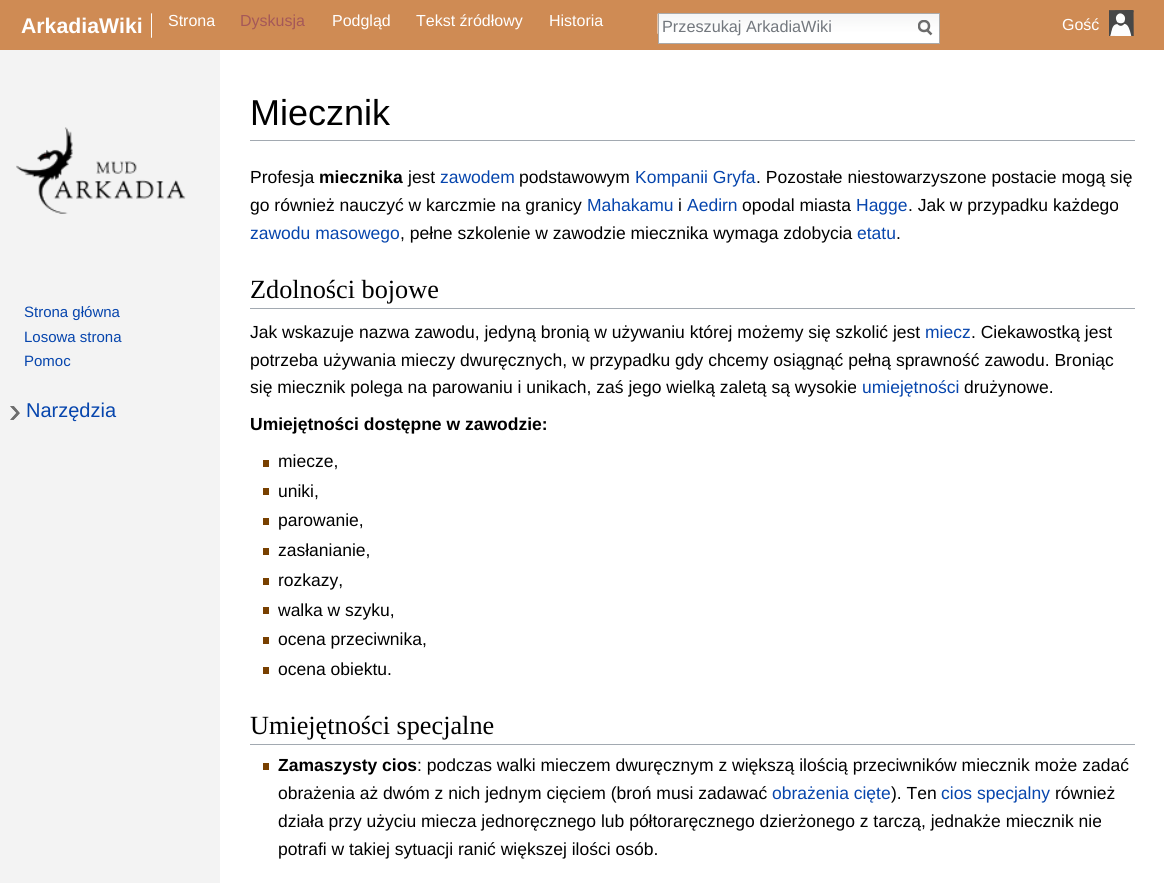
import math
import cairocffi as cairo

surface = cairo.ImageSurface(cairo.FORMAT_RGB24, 1164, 883)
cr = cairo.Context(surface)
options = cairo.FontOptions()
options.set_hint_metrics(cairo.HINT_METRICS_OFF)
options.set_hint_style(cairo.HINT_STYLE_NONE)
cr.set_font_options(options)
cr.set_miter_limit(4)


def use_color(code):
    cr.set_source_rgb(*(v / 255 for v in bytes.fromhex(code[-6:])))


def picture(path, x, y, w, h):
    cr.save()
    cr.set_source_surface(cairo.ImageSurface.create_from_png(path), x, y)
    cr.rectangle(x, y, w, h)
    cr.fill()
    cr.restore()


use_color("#f3f3f3")
cr.paint()
use_color("#cf8b54")
cr.rectangle(0, 0, 1164, 50)
cr.fill()
cr.select_font_face("Liberation Sans", cairo.FONT_SLANT_NORMAL, cairo.FONT_WEIGHT_BOLD)
cr.set_font_size(21.25)
use_color("#ffffff")
cr.move_to(21, 33)
cr.show_text("ArkadiaWiki")
use_color("#fefefe")
cr.new_path()
cr.move_to(151, 25.5)
cr.line_to(151, 13.5)
cr.curve_to(151, 13, 152.5, 13, 152, 14.5)
cr.line_to(152, 37.5)
cr.line_to(151.5, 38)
cr.line_to(151, 37.5)
cr.close_path()
cr.fill()
cr.select_font_face("Liberation Sans")
cr.set_font_size(16)
use_color("#ffffff")
cr.move_to(168, 26)
cr.show_text("Strona")
use_color("#a55858")
cr.move_to(240, 26)
cr.show_text("Dyskusja")
use_color("#ffffff")
cr.move_to(332, 26)
cr.show_text("Podgląd")
cr.move_to(416, 26)
cr.show_text("Tekst źródłowy")
cr.move_to(549, 26)
cr.show_text("Historia")
cr.rectangle(659, 33, 280, 10)
cr.fill()
picture("img1.png", 657, 13, 282, 21)
cr.rectangle(658.5, 13.5, 281, 30)
use_color("#aaaaaa")
cr.set_line_width(1)
cr.stroke()
cr.set_font_size(16.25)
use_color("#72777d")
cr.move_to(662, 32)
cr.show_text("Przeszukaj ArkadiaWiki")
cr.new_path()
cr.move_to(931.5, 34.5)
cr.line_to(926.5, 29.5)
use_color("#6c6c6c")
cr.set_line_width(2.5)
cr.stroke()
cr.save()
cr.rectangle(918, 20, 15, 16)
cr.clip()
cr.arc(924, 26, 5, 0, 2 * math.pi)
cr.stroke()
cr.restore()
cr.set_font_size(16)
use_color("#ffffff")
cr.move_to(1062, 30)
cr.show_text("Gość")
picture("img2.png", 1109, 10, 25, 26)
picture("img3.png", 16, 127, 170, 87)
cr.set_font_size(15)
use_color("#0645ad")
cr.move_to(24, 317)
cr.show_text("Strona główna")
cr.move_to(24, 342)
cr.show_text("Losowa strona")
cr.move_to(24, 366)
cr.show_text("Pomoc")
picture("img4.png", 10, 406, 10, 14)
cr.set_font_size(20)
cr.move_to(26, 417)
cr.show_text("Narzędzia")
use_color("#ffffff")
cr.rectangle(220, 50, 944, 833)
cr.fill()
use_color("#a2a9b1")
cr.rectangle(250, 140, 885, 1)
cr.fill()
cr.set_font_size(36)
use_color("#000000")
cr.move_to(250, 125)
cr.show_text("Miecznik")
cr.set_font_size(17.5)
cr.move_to(250, 183)
cr.show_text("Profesja")
cr.select_font_face("Liberation Sans", cairo.FONT_SLANT_NORMAL, cairo.FONT_WEIGHT_BOLD)
cr.move_to(319, 183)
cr.show_text("miecznika")
cr.select_font_face("Liberation Sans")
cr.move_to(408, 183)
cr.show_text("jest")
use_color("#0645ad")
cr.move_to(440, 183)
cr.show_text("zawodem")
use_color("#000000")
cr.move_to(519, 183)
cr.show_text("podstawowym")
use_color("#0645ad")
cr.move_to(635, 183)
cr.show_text("Kompanii Gryfa")
use_color("#000000")
cr.move_to(756, 183)
cr.show_text(". Pozostałe niestowarzyszone postacie mogą się")
cr.move_to(250, 211)
cr.show_text("go również nauczyć w karczmie na granicy")
use_color("#0645ad")
cr.move_to(587, 211)
cr.show_text("Mahakamu")
use_color("#000000")
cr.move_to(678, 211)
cr.show_text("i")
use_color("#0645ad")
cr.move_to(687, 211)
cr.show_text("Aedirn")
use_color("#000000")
cr.move_to(742, 211)
cr.show_text("opodal miasta")
use_color("#0645ad")
cr.move_to(856, 211)
cr.show_text("Hagge")
use_color("#000000")
cr.move_to(908, 211)
cr.show_text(". Jak w przypadku każdego")
use_color("#0645ad")
cr.move_to(250, 239)
cr.show_text("zawodu masowego")
use_color("#000000")
cr.move_to(400, 239)
cr.show_text(", pełne szkolenie w zawodzie miecznika wymaga zdobycia")
use_color("#0645ad")
cr.move_to(857, 239)
cr.show_text("etatu")
use_color("#000000")
cr.move_to(896, 239)
cr.show_text(".")
use_color("#a2a9b1")
cr.rectangle(250, 308, 885, 1)
cr.fill()
cr.select_font_face("Liberation Serif")
cr.set_font_size(26.25)
use_color("#000000")
cr.move_to(250, 298)
cr.show_text("Zdolności bojowe")
cr.select_font_face("Liberation Sans")
cr.set_font_size(17.5)
cr.move_to(250, 338)
cr.show_text("Jak wskazuje nazwa zawodu, jedyną bronią w używaniu której możemy się szkolić jest")
use_color("#0645ad")
cr.move_to(925, 338)
cr.show_text("miecz")
use_color("#000000")
cr.move_to(971, 338)
cr.show_text(". Ciekawostką jest")
cr.move_to(250, 366)
cr.show_text("potrzeba używania mieczy dwuręcznych, w przypadku gdy chcemy osiągnąć pełną sprawność zawodu. Broniąc")
cr.move_to(250, 393)
cr.show_text("się miecznik polega na parowaniu i unikach, zaś jego wielką zaletą są wysokie")
use_color("#0645ad")
cr.move_to(862, 393)
cr.show_text("umiejętności")
use_color("#000000")
cr.move_to(964, 393)
cr.show_text("drużynowe.")
cr.select_font_face("Liberation Sans", cairo.FONT_SLANT_NORMAL, cairo.FONT_WEIGHT_BOLD)
cr.move_to(250, 430)
cr.show_text("Umiejętności dostępne w zawodzie:")
use_color("#784000")
cr.rectangle(263, 460, 6, 7)
cr.fill()
cr.select_font_face("Liberation Sans")
use_color("#000000")
cr.move_to(278, 467)
cr.show_text("miecze,")
use_color("#784000")
cr.rectangle(263, 488, 6, 7)
cr.fill()
use_color("#000000")
cr.move_to(278, 497)
cr.show_text("uniki,")
use_color("#784000")
cr.rectangle(263, 518, 6, 7)
cr.fill()
use_color("#000000")
cr.move_to(278, 526)
cr.show_text("parowanie,")
use_color("#784000")
cr.rectangle(263, 548, 6, 7)
cr.fill()
use_color("#000000")
cr.move_to(278, 556)
cr.show_text("zasłanianie,")
use_color("#784000")
cr.rectangle(263, 578, 6, 7)
cr.fill()
use_color("#000000")
cr.move_to(278, 586)
cr.show_text("rozkazy,")
use_color("#784000")
cr.rectangle(263, 607, 6, 7)
cr.fill()
use_color("#000000")
cr.move_to(278, 616)
cr.show_text("walka w szyku,")
use_color("#784000")
cr.rectangle(263, 637, 6, 7)
cr.fill()
use_color("#000000")
cr.move_to(278, 645)
cr.show_text("ocena przeciwnika,")
use_color("#784000")
cr.rectangle(263, 667, 6, 7)
cr.fill()
use_color("#000000")
cr.move_to(278, 675)
cr.show_text("ocena obiektu.")
use_color("#a2a9b1")
cr.rectangle(250, 744, 885, 1)
cr.fill()
cr.select_font_face("Liberation Serif")
cr.set_font_size(26.25)
use_color("#000000")
cr.move_to(250, 734)
cr.show_text("Umiejętności specjalne")
use_color("#784000")
cr.rectangle(263, 763, 6, 7)
cr.fill()
cr.select_font_face("Liberation Sans", cairo.FONT_SLANT_NORMAL, cairo.FONT_WEIGHT_BOLD)
cr.set_font_size(17.5)
use_color("#000000")
cr.move_to(278, 771)
cr.show_text("Zamaszysty cios")
cr.select_font_face("Liberation Sans")
cr.move_to(417, 771)
cr.show_text(": podczas walki mieczem dwuręcznym z większą ilością przeciwników miecznik może zadać")
cr.move_to(278, 799)
cr.show_text("obrażenia aż dwóm z nich jednym cięciem (broń musi zadawać")
use_color("#0645ad")
cr.move_to(772, 799)
cr.show_text("obrażenia cięte")
use_color("#000000")
cr.move_to(891, 799)
cr.show_text("). Ten")
use_color("#0645ad")
cr.move_to(941, 799)
cr.show_text("cios specjalny")
use_color("#000000")
cr.move_to(1055, 799)
cr.show_text("również")
cr.move_to(278, 827)
cr.show_text("działa przy użyciu miecza jednoręcznego lub półtoraręcznego dzierżonego z tarczą, jednakże miecznik nie")
cr.move_to(278, 855)
cr.show_text("potrafi w takiej sytuacji ranić większej ilości osób.")
surface.write_to_png("result.png")
